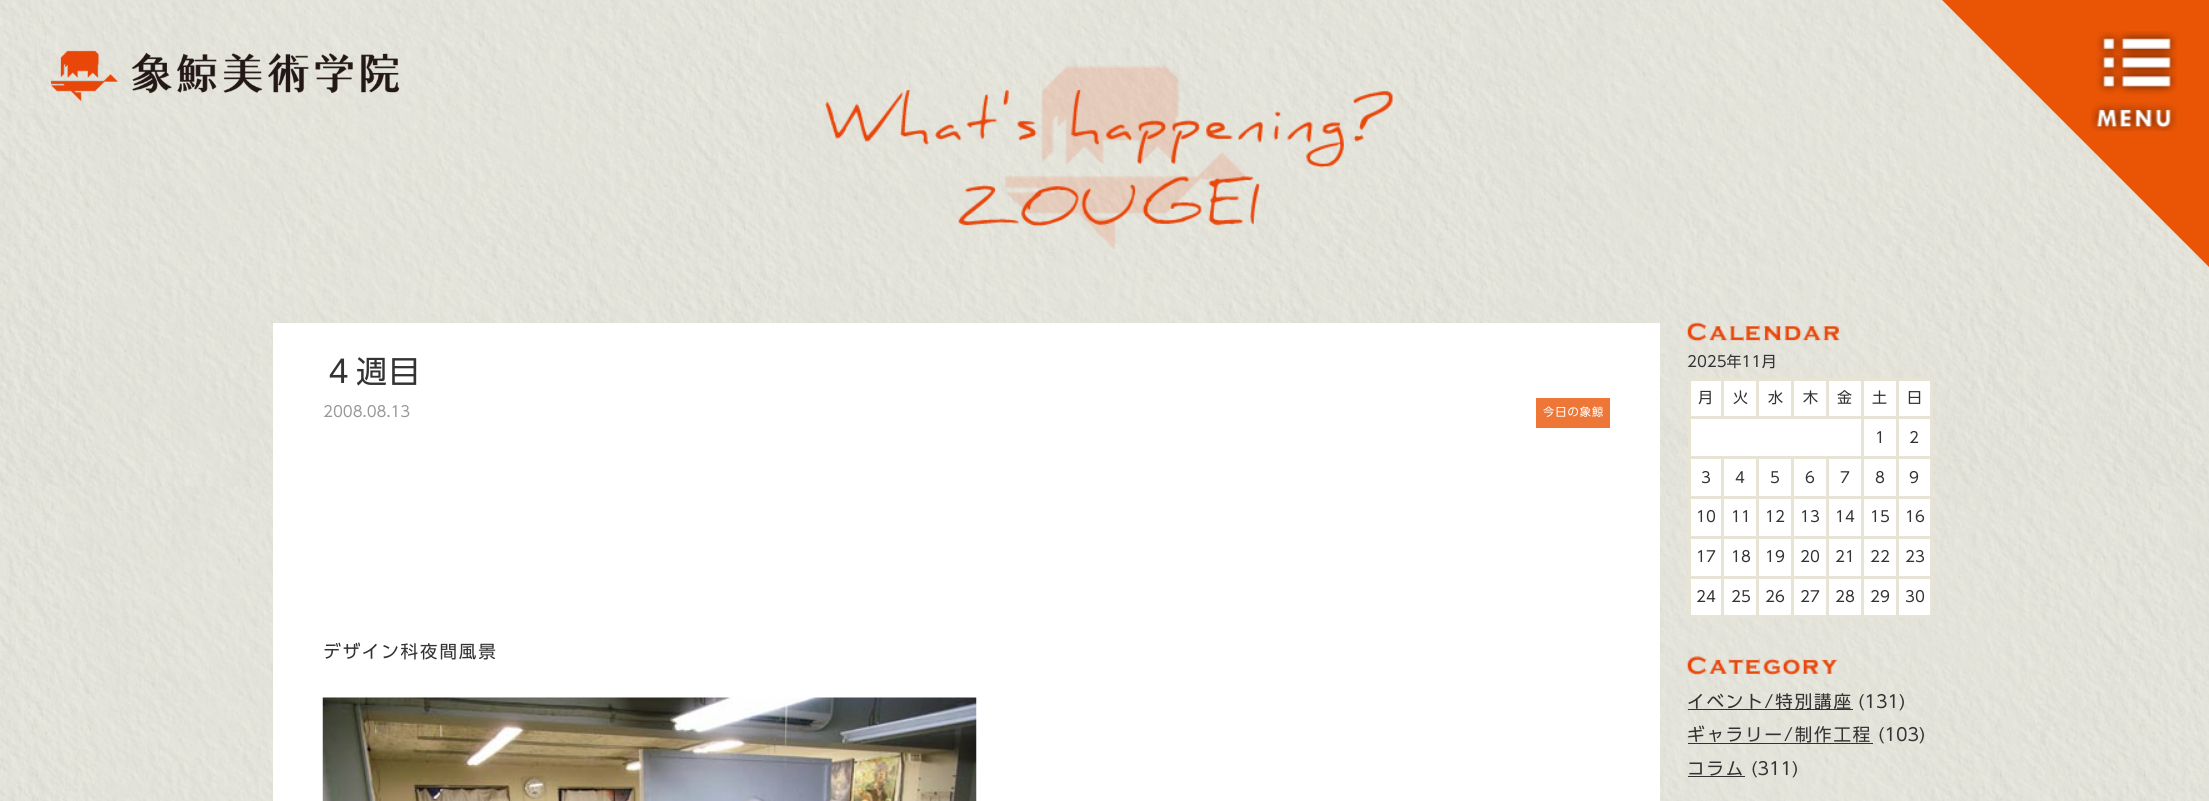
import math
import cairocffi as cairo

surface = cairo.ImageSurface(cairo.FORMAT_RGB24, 2209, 801)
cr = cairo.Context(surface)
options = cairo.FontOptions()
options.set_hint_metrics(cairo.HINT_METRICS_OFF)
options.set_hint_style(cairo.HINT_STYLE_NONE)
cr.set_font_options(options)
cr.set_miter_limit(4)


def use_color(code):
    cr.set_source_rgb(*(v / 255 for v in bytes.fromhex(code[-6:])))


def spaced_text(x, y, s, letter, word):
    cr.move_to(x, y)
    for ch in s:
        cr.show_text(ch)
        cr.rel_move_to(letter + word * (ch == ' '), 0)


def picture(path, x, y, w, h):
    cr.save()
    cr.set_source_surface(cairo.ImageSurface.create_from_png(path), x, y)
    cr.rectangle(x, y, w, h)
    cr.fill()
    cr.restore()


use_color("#ffffff")
cr.paint()
picture("img1.png", 0, 0, 2209, 801)
picture("img2.png", 50, 50, 350, 51)
use_color("#ea5505")
cr.new_path()
cr.move_to(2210, -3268)
cr.line_to(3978, -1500)
cr.line_to(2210, 268)
cr.line_to(442, -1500)
cr.close_path()
cr.fill()
picture("img3.png", 2091, 31, 86, 100)
picture("img4.png", 825, 65, 568, 185)
use_color("#ffffff")
cr.rectangle(273, 323, 1387, 478)
cr.fill()
cr.select_font_face("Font")
cr.set_font_size(31)
use_color("#333333")
spaced_text(323, 383, "４週目", 1.9, 0)
cr.set_font_size(15)
use_color("#999999")
cr.move_to(323, 417)
cr.show_text("2008.08.13")
use_color("#ee7737")
cr.rectangle(1536, 398, 74, 30)
cr.fill()
cr.set_font_size(11.25)
use_color("#ffffff")
spaced_text(1543, 416, "今日の象鯨", 1, 0)
cr.set_font_size(17.5)
use_color("#333333")
spaced_text(323, 658, "デザイン科夜間風景", 1.9, 0)
picture("img5.png", 322, 697, 655, 104)
picture("img6.png", 1687, 322, 153, 20)
cr.set_font_size(15)
cr.move_to(1687, 367)
cr.show_text("2025年11月")
use_color("#ffffff")
cr.rectangle(1691, 381, 30, 35)
cr.fill()
use_color("#e7e4d6")
cr.rectangle(1896, 378, 37, 3)
cr.fill()
cr.rectangle(1896, 416, 37, 3)
cr.fill()
cr.rectangle(1896, 456, 37, 3)
cr.fill()
cr.rectangle(1896, 496, 37, 3)
cr.fill()
cr.rectangle(1896, 536, 37, 3)
cr.fill()
cr.rectangle(1896, 576, 37, 3)
cr.fill()
cr.rectangle(1930, 576, 3, 42)
cr.fill()
cr.rectangle(1896, 615, 37, 3)
cr.fill()
cr.rectangle(1896, 576, 3, 42)
cr.fill()
cr.rectangle(1861, 576, 38, 3)
cr.fill()
cr.rectangle(1896, 536, 3, 43)
cr.fill()
cr.rectangle(1861, 536, 38, 3)
cr.fill()
cr.rectangle(1896, 496, 3, 43)
cr.fill()
cr.rectangle(1861, 496, 38, 3)
cr.fill()
cr.rectangle(1896, 456, 3, 43)
cr.fill()
cr.rectangle(1861, 456, 38, 3)
cr.fill()
cr.rectangle(1896, 416, 3, 43)
cr.fill()
cr.rectangle(1861, 416, 38, 3)
cr.fill()
cr.rectangle(1896, 378, 3, 41)
cr.fill()
cr.rectangle(1861, 378, 38, 3)
cr.fill()
cr.rectangle(1861, 615, 38, 3)
cr.fill()
cr.rectangle(1861, 576, 3, 42)
cr.fill()
cr.rectangle(1826, 576, 38, 3)
cr.fill()
cr.rectangle(1861, 536, 3, 43)
cr.fill()
cr.rectangle(1826, 536, 38, 3)
cr.fill()
cr.rectangle(1861, 496, 3, 43)
cr.fill()
cr.rectangle(1826, 496, 38, 3)
cr.fill()
cr.rectangle(1861, 456, 3, 43)
cr.fill()
cr.rectangle(1826, 456, 38, 3)
cr.fill()
cr.rectangle(1861, 416, 3, 43)
cr.fill()
cr.rectangle(1688, 416, 176, 3)
cr.fill()
cr.rectangle(1861, 378, 3, 41)
cr.fill()
cr.rectangle(1826, 378, 38, 3)
cr.fill()
cr.rectangle(1826, 378, 3, 41)
cr.fill()
cr.rectangle(1791, 378, 38, 3)
cr.fill()
cr.rectangle(1791, 378, 3, 41)
cr.fill()
cr.rectangle(1756, 378, 38, 3)
cr.fill()
cr.rectangle(1756, 378, 3, 41)
cr.fill()
cr.rectangle(1721, 378, 38, 3)
cr.fill()
cr.rectangle(1721, 378, 3, 41)
cr.fill()
cr.rectangle(1688, 378, 36, 3)
cr.fill()
cr.rectangle(1826, 615, 38, 3)
cr.fill()
cr.rectangle(1826, 576, 3, 42)
cr.fill()
cr.rectangle(1791, 576, 38, 3)
cr.fill()
cr.rectangle(1826, 536, 3, 43)
cr.fill()
cr.rectangle(1791, 536, 38, 3)
cr.fill()
cr.rectangle(1826, 496, 3, 43)
cr.fill()
cr.rectangle(1791, 496, 38, 3)
cr.fill()
cr.rectangle(1826, 456, 3, 43)
cr.fill()
cr.rectangle(1791, 456, 38, 3)
cr.fill()
cr.rectangle(1791, 615, 38, 3)
cr.fill()
cr.rectangle(1791, 576, 3, 42)
cr.fill()
cr.rectangle(1756, 576, 38, 3)
cr.fill()
cr.rectangle(1791, 536, 3, 43)
cr.fill()
cr.rectangle(1756, 536, 38, 3)
cr.fill()
cr.rectangle(1791, 496, 3, 43)
cr.fill()
cr.rectangle(1756, 496, 38, 3)
cr.fill()
cr.rectangle(1791, 456, 3, 43)
cr.fill()
cr.rectangle(1756, 456, 38, 3)
cr.fill()
cr.rectangle(1756, 615, 38, 3)
cr.fill()
cr.rectangle(1756, 576, 3, 42)
cr.fill()
cr.rectangle(1721, 576, 38, 3)
cr.fill()
cr.rectangle(1756, 536, 3, 43)
cr.fill()
cr.rectangle(1721, 536, 38, 3)
cr.fill()
cr.rectangle(1756, 496, 3, 43)
cr.fill()
cr.rectangle(1721, 496, 38, 3)
cr.fill()
cr.rectangle(1756, 456, 3, 43)
cr.fill()
cr.rectangle(1721, 456, 38, 3)
cr.fill()
cr.rectangle(1721, 615, 38, 3)
cr.fill()
cr.rectangle(1721, 576, 3, 42)
cr.fill()
cr.rectangle(1688, 576, 36, 3)
cr.fill()
cr.rectangle(1721, 536, 3, 43)
cr.fill()
cr.rectangle(1688, 536, 36, 3)
cr.fill()
cr.rectangle(1721, 496, 3, 43)
cr.fill()
cr.rectangle(1688, 496, 36, 3)
cr.fill()
cr.rectangle(1721, 456, 3, 43)
cr.fill()
cr.rectangle(1688, 456, 36, 3)
cr.fill()
cr.rectangle(1688, 615, 36, 3)
cr.fill()
cr.rectangle(1688, 576, 3, 42)
cr.fill()
cr.rectangle(1688, 536, 3, 43)
cr.fill()
cr.rectangle(1688, 496, 3, 43)
cr.fill()
cr.rectangle(1688, 456, 3, 43)
cr.fill()
cr.rectangle(1688, 416, 3, 43)
cr.fill()
cr.rectangle(1688, 378, 3, 41)
cr.fill()
use_color("#333333")
cr.move_to(1698, 403)
cr.show_text("月")
use_color("#ffffff")
cr.rectangle(1724, 381, 32, 35)
cr.fill()
use_color("#333333")
cr.move_to(1733, 403)
cr.show_text("火")
use_color("#ffffff")
cr.rectangle(1759, 381, 32, 35)
cr.fill()
use_color("#333333")
cr.move_to(1768, 403)
cr.show_text("水")
use_color("#ffffff")
cr.rectangle(1794, 381, 32, 35)
cr.fill()
use_color("#333333")
cr.move_to(1803, 403)
cr.show_text("木")
use_color("#ffffff")
cr.rectangle(1829, 381, 32, 35)
cr.fill()
use_color("#333333")
cr.move_to(1837, 403)
cr.show_text("金")
use_color("#ffffff")
cr.rectangle(1864, 381, 32, 35)
cr.fill()
use_color("#333333")
cr.move_to(1872, 403)
cr.show_text("土")
use_color("#ffffff")
cr.rectangle(1899, 381, 31, 35)
cr.fill()
use_color("#e7e4d6")
cr.rectangle(1930, 536, 3, 43)
cr.fill()
cr.rectangle(1930, 496, 3, 43)
cr.fill()
cr.rectangle(1930, 456, 3, 43)
cr.fill()
cr.rectangle(1930, 416, 3, 43)
cr.fill()
cr.rectangle(1930, 378, 3, 41)
cr.fill()
use_color("#333333")
cr.move_to(1907, 403)
cr.show_text("日")
use_color("#ffffff")
cr.rectangle(1691, 419, 170, 37)
cr.fill()
cr.rectangle(1864, 419, 32, 37)
cr.fill()
use_color("#333333")
cr.move_to(1875, 443)
cr.show_text("1")
use_color("#ffffff")
cr.rectangle(1899, 419, 31, 37)
cr.fill()
use_color("#333333")
cr.move_to(1909, 443)
cr.show_text("2")
use_color("#ffffff")
cr.rectangle(1691, 459, 30, 37)
cr.fill()
use_color("#333333")
cr.move_to(1701, 483)
cr.show_text("3")
use_color("#ffffff")
cr.rectangle(1724, 459, 32, 37)
cr.fill()
use_color("#333333")
cr.move_to(1735, 483)
cr.show_text("4")
use_color("#ffffff")
cr.rectangle(1759, 459, 32, 37)
cr.fill()
use_color("#333333")
cr.move_to(1770, 483)
cr.show_text("5")
use_color("#ffffff")
cr.rectangle(1794, 459, 32, 37)
cr.fill()
use_color("#333333")
cr.move_to(1805, 483)
cr.show_text("6")
use_color("#ffffff")
cr.rectangle(1829, 459, 32, 37)
cr.fill()
use_color("#333333")
cr.move_to(1840, 483)
cr.show_text("7")
use_color("#ffffff")
cr.rectangle(1864, 459, 32, 37)
cr.fill()
use_color("#333333")
cr.move_to(1875, 483)
cr.show_text("8")
use_color("#ffffff")
cr.rectangle(1899, 459, 31, 37)
cr.fill()
use_color("#333333")
cr.move_to(1909, 483)
cr.show_text("9")
use_color("#ffffff")
cr.rectangle(1691, 499, 30, 37)
cr.fill()
use_color("#333333")
cr.move_to(1696, 522)
cr.show_text("10")
use_color("#ffffff")
cr.rectangle(1724, 499, 32, 37)
cr.fill()
use_color("#333333")
cr.move_to(1731, 522)
cr.show_text("11")
use_color("#ffffff")
cr.rectangle(1759, 499, 32, 37)
cr.fill()
use_color("#333333")
cr.move_to(1765, 522)
cr.show_text("12")
use_color("#ffffff")
cr.rectangle(1794, 499, 32, 37)
cr.fill()
use_color("#333333")
cr.move_to(1800, 522)
cr.show_text("13")
use_color("#ffffff")
cr.rectangle(1829, 499, 32, 37)
cr.fill()
use_color("#333333")
cr.move_to(1835, 522)
cr.show_text("14")
use_color("#ffffff")
cr.rectangle(1864, 499, 32, 37)
cr.fill()
use_color("#333333")
cr.move_to(1870, 522)
cr.show_text("15")
use_color("#ffffff")
cr.rectangle(1899, 499, 31, 37)
cr.fill()
use_color("#333333")
cr.move_to(1905, 522)
cr.show_text("16")
use_color("#ffffff")
cr.rectangle(1691, 539, 30, 37)
cr.fill()
use_color("#333333")
cr.move_to(1696, 562)
cr.show_text("17")
use_color("#ffffff")
cr.rectangle(1724, 539, 32, 37)
cr.fill()
use_color("#333333")
cr.move_to(1731, 562)
cr.show_text("18")
use_color("#ffffff")
cr.rectangle(1759, 539, 32, 37)
cr.fill()
use_color("#333333")
cr.move_to(1765, 562)
cr.show_text("19")
use_color("#ffffff")
cr.rectangle(1794, 539, 32, 37)
cr.fill()
use_color("#333333")
cr.move_to(1800, 562)
cr.show_text("20")
use_color("#ffffff")
cr.rectangle(1829, 539, 32, 37)
cr.fill()
use_color("#333333")
cr.move_to(1835, 562)
cr.show_text("21")
use_color("#ffffff")
cr.rectangle(1864, 539, 32, 37)
cr.fill()
use_color("#333333")
cr.move_to(1870, 562)
cr.show_text("22")
use_color("#ffffff")
cr.rectangle(1899, 539, 31, 37)
cr.fill()
use_color("#333333")
cr.move_to(1905, 562)
cr.show_text("23")
use_color("#ffffff")
cr.rectangle(1691, 579, 30, 36)
cr.fill()
use_color("#333333")
cr.move_to(1696, 602)
cr.show_text("24")
use_color("#ffffff")
cr.rectangle(1724, 579, 32, 36)
cr.fill()
use_color("#333333")
cr.move_to(1731, 602)
cr.show_text("25")
use_color("#ffffff")
cr.rectangle(1759, 579, 32, 36)
cr.fill()
use_color("#333333")
cr.move_to(1765, 602)
cr.show_text("26")
use_color("#ffffff")
cr.rectangle(1794, 579, 32, 36)
cr.fill()
use_color("#333333")
cr.move_to(1800, 602)
cr.show_text("27")
use_color("#ffffff")
cr.rectangle(1829, 579, 32, 36)
cr.fill()
use_color("#333333")
cr.move_to(1835, 602)
cr.show_text("28")
use_color("#ffffff")
cr.rectangle(1864, 579, 32, 36)
cr.fill()
use_color("#333333")
cr.move_to(1870, 602)
cr.show_text("29")
use_color("#ffffff")
cr.rectangle(1899, 579, 31, 36)
cr.fill()
use_color("#333333")
cr.move_to(1905, 602)
cr.show_text("30")
picture("img7.png", 1687, 656, 151, 19)
cr.rectangle(1688, 709, 165, 1)
cr.fill()
cr.set_font_size(17.5)
spaced_text(1687, 708, "イベント/特別講座", 1.9, 0)
cr.move_to(1858, 708)
cr.show_text("(131)")
spaced_text(1687, 741, "ギャラリー/制作工程", 1.9, 0)
cr.rectangle(1688, 743, 185, 1)
cr.fill()
cr.move_to(1878, 741)
cr.show_text("(103)")
spaced_text(1687, 775, "コラム", 1.9, 0)
cr.rectangle(1688, 776, 57, 1)
cr.fill()
cr.move_to(1751, 775)
cr.show_text("(311)")
surface.write_to_png("result.png")
